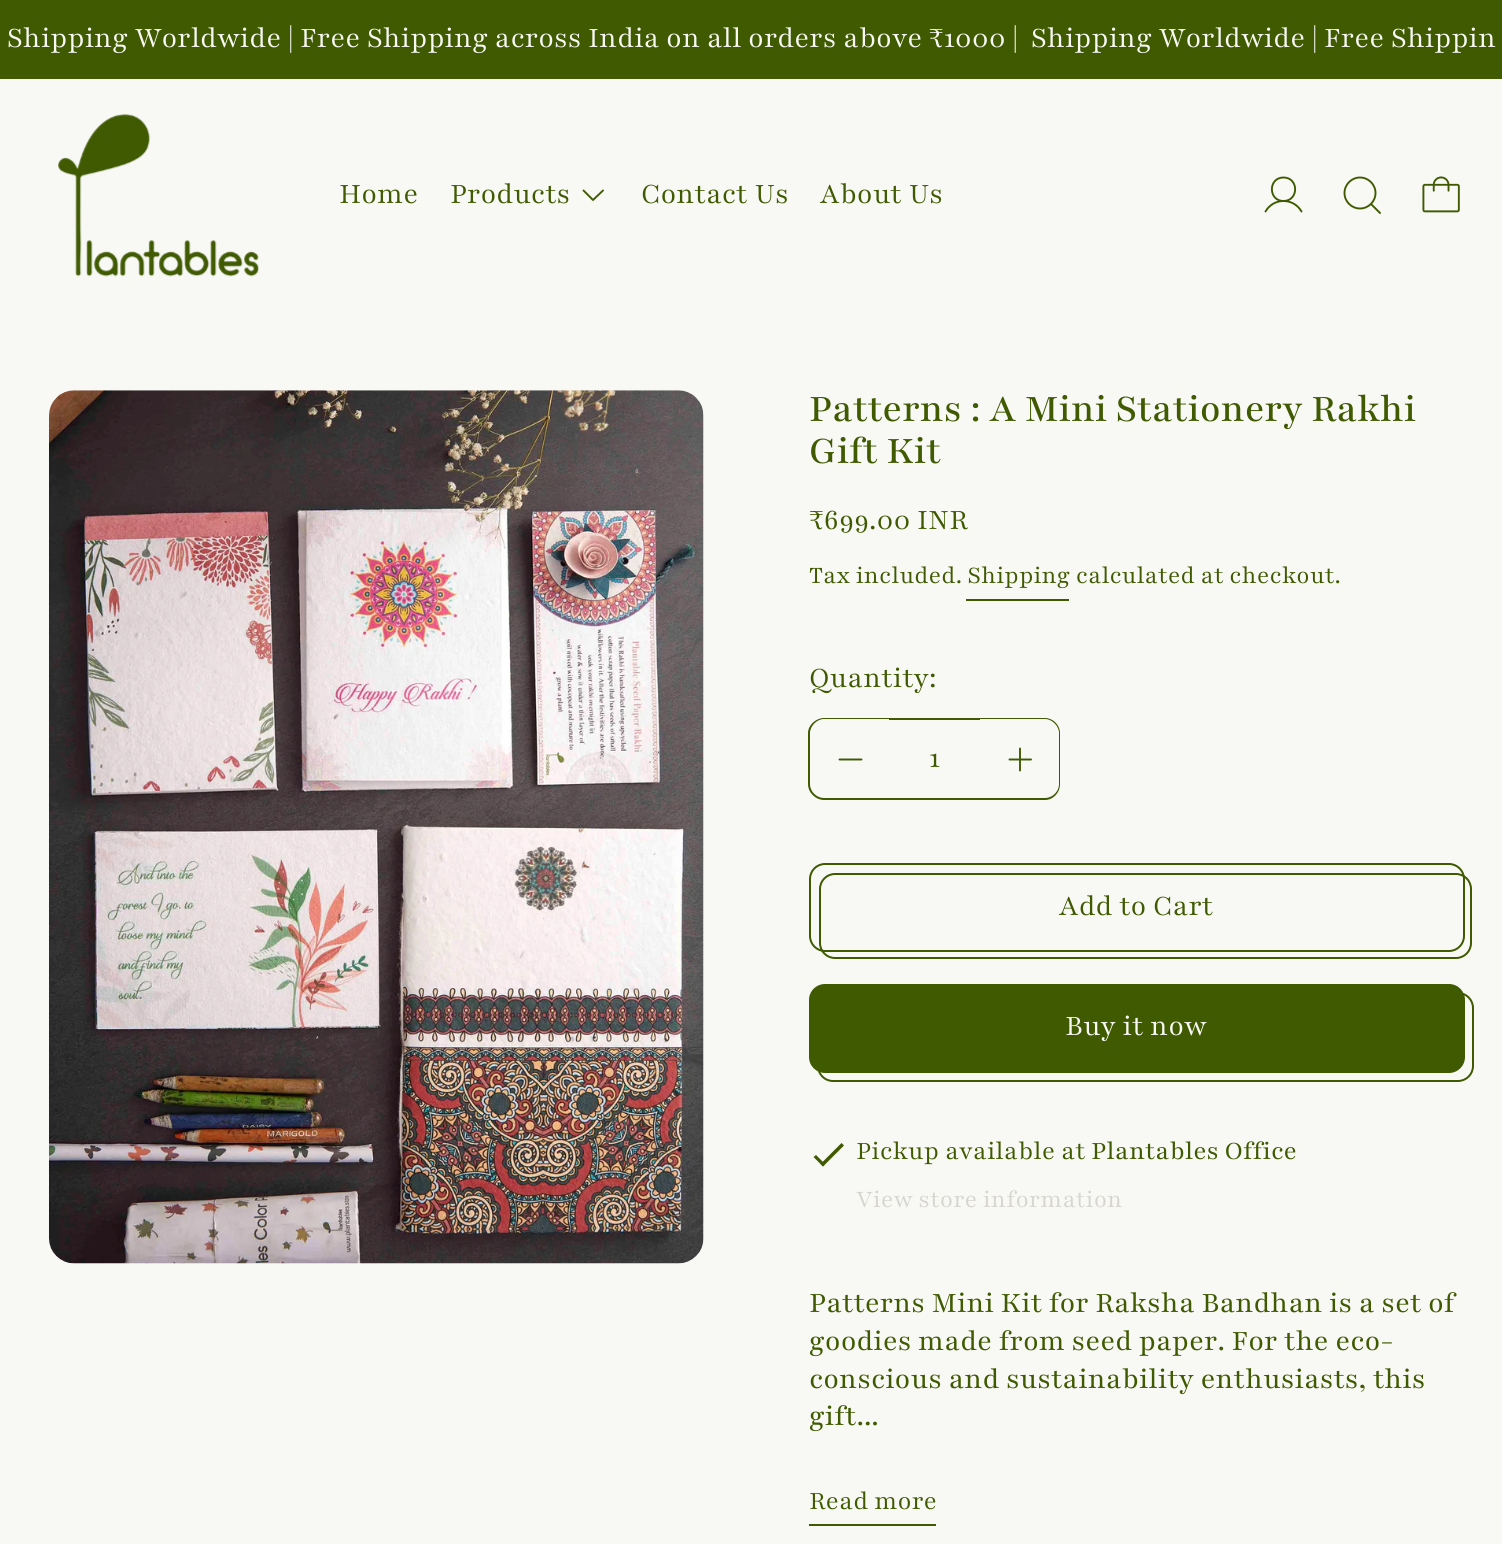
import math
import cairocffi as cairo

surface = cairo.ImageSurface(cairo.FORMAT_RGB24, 1502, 1544)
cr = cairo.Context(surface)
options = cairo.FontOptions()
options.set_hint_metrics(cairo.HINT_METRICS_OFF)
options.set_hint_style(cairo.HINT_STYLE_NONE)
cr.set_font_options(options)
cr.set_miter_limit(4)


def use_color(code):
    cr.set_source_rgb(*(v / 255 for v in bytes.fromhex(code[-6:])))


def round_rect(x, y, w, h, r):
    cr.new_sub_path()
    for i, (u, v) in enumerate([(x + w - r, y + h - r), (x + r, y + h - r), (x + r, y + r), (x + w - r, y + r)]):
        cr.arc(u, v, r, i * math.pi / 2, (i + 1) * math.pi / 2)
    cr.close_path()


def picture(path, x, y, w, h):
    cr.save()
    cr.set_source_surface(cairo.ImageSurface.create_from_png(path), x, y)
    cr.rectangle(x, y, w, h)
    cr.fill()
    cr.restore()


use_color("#f8f8f5")
cr.paint()
use_color("#3f5a00")
cr.rectangle(0, 0, 1502, 79)
cr.fill()
cr.select_font_face("Playfair Light")
cr.set_font_size(31.5)
use_color("#f8f8f5")
cr.move_to(7, 47)
cr.show_text("Shipping Worldwide | Free Shipping across India on all orders above ₹1000 |")
cr.move_to(1031, 47)
cr.show_text("Shipping Worldwide | Free Shippin")
picture("img1.png", 58, 114, 201, 163)
use_color("#3f5a00")
cr.move_to(339, 203)
cr.show_text("Home")
cr.move_to(450, 203)
cr.show_text("Products")
cr.new_path()
cr.move_to(603, 190.5)
cr.line_to(593, 200)
cr.line_to(583.5, 190.5)
cr.set_line_width(1.9)
cr.set_line_cap(cairo.LINE_CAP_ROUND)
cr.set_line_join(cairo.LINE_JOIN_ROUND)
cr.stroke()
cr.move_to(641, 203)
cr.show_text("Contact Us")
cr.move_to(820, 203)
cr.show_text("About Us")
cr.new_path()
cr.move_to(1283.5, 201)
cr.curve_to(1299, 201, 1299, 177.5, 1283.5, 177.5)
cr.curve_to(1268, 177.5, 1268, 201, 1283.5, 201)
cr.close_path()
cr.set_line_cap(cairo.LINE_CAP_BUTT)
cr.set_line_join(cairo.LINE_JOIN_MITER)
cr.stroke()
cr.new_path()
cr.move_to(1265.5, 211.5)
cr.curve_to(1273.5, 197.5, 1293.5, 197.5, 1301.5, 211.5)
cr.set_line_cap(cairo.LINE_CAP_ROUND)
cr.set_line_join(cairo.LINE_JOIN_ROUND)
cr.stroke()
cr.new_path()
cr.move_to(1360, 208.5)
cr.curve_to(1368.5, 208.5, 1375.5, 201.5, 1375.5, 193)
cr.curve_to(1375.5, 184.5, 1368.5, 177.5, 1360, 177.5)
cr.curve_to(1351.5, 177.5, 1344.5, 184.5, 1344.5, 193)
cr.curve_to(1344.5, 201.5, 1351.5, 208.5, 1360, 208.5)
cr.close_path()
cr.move_to(1371, 204)
cr.line_to(1380, 213)
cr.stroke()
picture("img2.png", 1422, 176, 38, 37)
picture("img3.png", 49, 390, 655, 874)
cr.select_font_face("Playfair Medium")
cr.set_font_size(42)
cr.move_to(809, 421)
cr.show_text("Patterns : A Mini Stationery Rakhi")
cr.move_to(809, 463)
cr.show_text("Gift Kit")
cr.select_font_face("Playfair Light")
cr.set_font_size(31.5)
cr.move_to(809, 529)
cr.show_text("₹699.00 INR")
cr.select_font_face("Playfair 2 Light")
cr.set_font_size(26.5)
cr.move_to(809, 583)
cr.show_text("Tax included. Shipping calculated at checkout.")
cr.rectangle(966, 599, 103, 2)
cr.fill()
cr.select_font_face("Playfair Light")
cr.set_font_size(31.5)
cr.move_to(809, 687)
cr.show_text("Quantity:")
cr.set_fill_rule(cairo.FILL_RULE_EVEN_ODD)
cr.new_path()
cr.move_to(824, 718)
cr.line_to(889, 718)
cr.line_to(889, 800)
cr.line_to(824, 800)
cr.curve_to(816, 800, 808, 793, 808, 784)
cr.line_to(808, 733)
cr.curve_to(808, 725, 816, 718, 824, 718)
cr.close_path()
cr.move_to(824, 719)
cr.line_to(889, 719)
cr.line_to(889, 798)
cr.line_to(824, 798)
cr.curve_to(817, 798, 810, 792, 810, 784)
cr.line_to(810, 733)
cr.curve_to(810, 726, 817, 719, 824, 719)
cr.close_path()
cr.fill()
cr.new_path()
cr.move_to(839.5, 759.5)
cr.line_to(861.5, 759.5)
cr.stroke()
cr.rectangle(889, 718, 91, 2)
cr.fill()
cr.rectangle(889, 798, 91, 2)
cr.fill()
cr.move_to(929, 767)
cr.show_text("1")
cr.new_path()
cr.move_to(980, 718)
cr.line_to(1045, 718)
cr.curve_to(1053, 718, 1060, 725, 1060, 733)
cr.line_to(1060, 784)
cr.curve_to(1060, 793, 1053, 800, 1045, 800)
cr.line_to(980, 800)
cr.close_path()
cr.move_to(980, 719)
cr.line_to(1045, 719)
cr.curve_to(1052, 719, 1059, 726, 1059, 733)
cr.line_to(1059, 784)
cr.curve_to(1059, 792, 1052, 798, 1045, 798)
cr.line_to(980, 798)
cr.close_path()
cr.fill()
cr.new_path()
cr.move_to(1009.5, 759.5)
cr.line_to(1031, 759.5)
cr.move_to(1020, 748.5)
cr.line_to(1020, 770.5)
cr.stroke()
round_rect(810, 864, 654, 87, 15)
cr.set_line_width(2)
cr.set_line_cap(cairo.LINE_CAP_BUTT)
cr.set_line_join(cairo.LINE_JOIN_MITER)
cr.stroke()
round_rect(820, 874, 651, 84, 15)
cr.stroke()
cr.move_to(1059, 915)
cr.show_text("Add to Cart")
round_rect(809, 984, 656, 89, 16)
cr.fill()
round_rect(818, 993, 655, 88, 15)
cr.stroke()
use_color("#f8f8f5")
cr.move_to(1065, 1035)
cr.show_text("Buy it now")
use_color("#3f5a00")
cr.new_path()
cr.move_to(813.5, 1157)
cr.line_to(816, 1155)
cr.line_to(825, 1164)
cr.line_to(823, 1166.5)
cr.close_path()
cr.fill()
cr.new_path()
cr.move_to(820.5, 1164)
cr.line_to(841.5, 1143)
cr.line_to(844, 1145.5)
cr.line_to(823, 1166.5)
cr.close_path()
cr.fill()
cr.select_font_face("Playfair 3 Light")
cr.set_font_size(28)
cr.move_to(856, 1159)
cr.show_text("Pickup available at")
cr.select_font_face("Playfair")
cr.move_to(1091, 1159)
cr.show_text("Plantables Office")
cr.select_font_face("Playfair 2 Light")
cr.set_font_size(26.5)
use_color("#d6d5d0")
cr.move_to(856, 1207)
cr.show_text("View store information")
cr.select_font_face("Playfair 2")
cr.set_font_size(31.5)
use_color("#3f5a00")
cr.move_to(809, 1312)
cr.show_text("Patterns Mini Kit for Raksha Bandhan is a set of")
cr.move_to(809, 1350)
cr.show_text("goodies made from seed paper. For the eco-")
cr.move_to(809, 1388)
cr.show_text("conscious and sustainability enthusiasts, this")
cr.move_to(809, 1425)
cr.show_text("gift...")
cr.select_font_face("Playfair 3 Light")
cr.set_font_size(28)
cr.move_to(809, 1509)
cr.show_text("Read more")
cr.rectangle(809, 1524, 127, 2)
cr.fill()
surface.write_to_png("result.png")
